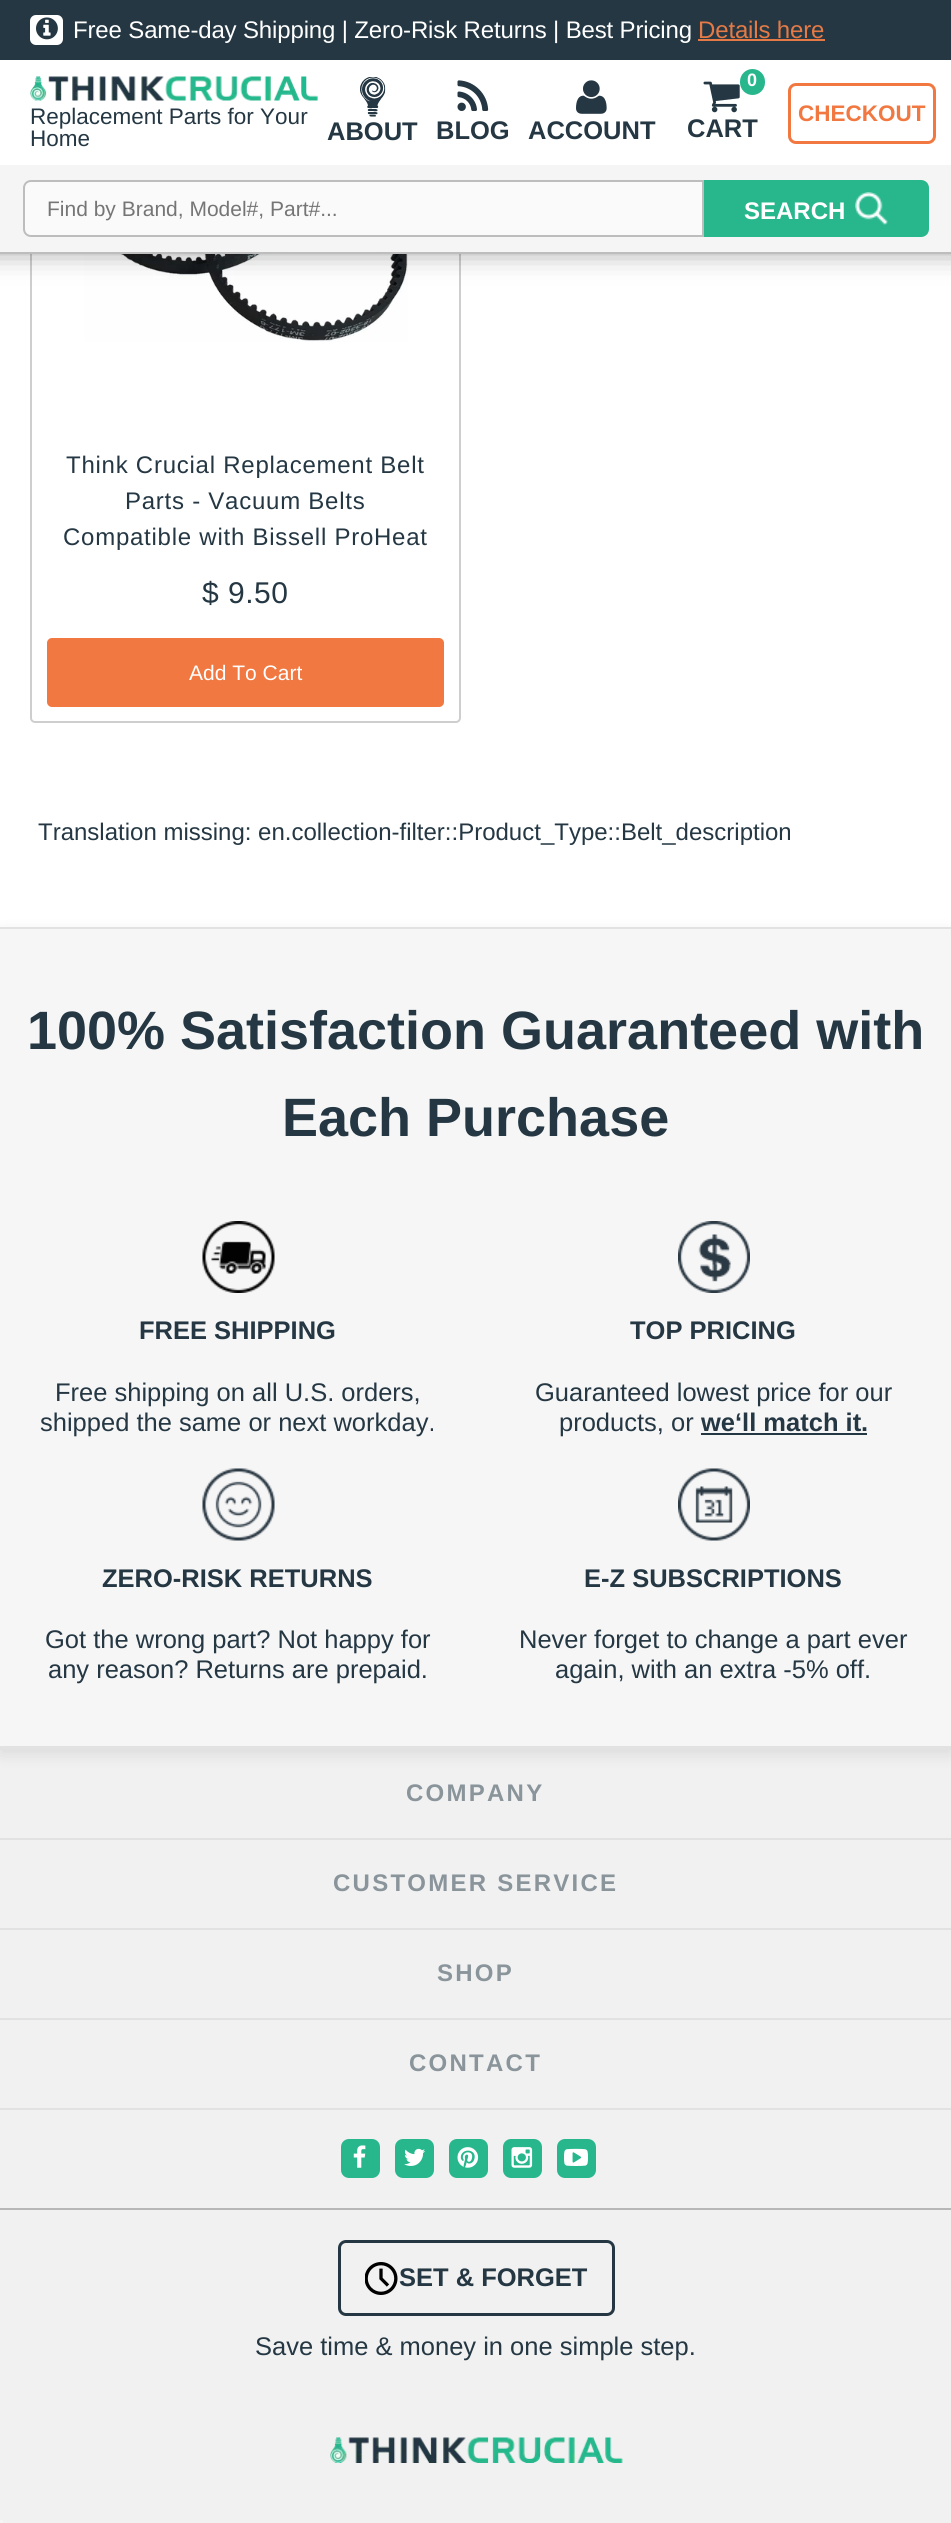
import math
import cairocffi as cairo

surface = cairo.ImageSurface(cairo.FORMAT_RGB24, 951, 2523)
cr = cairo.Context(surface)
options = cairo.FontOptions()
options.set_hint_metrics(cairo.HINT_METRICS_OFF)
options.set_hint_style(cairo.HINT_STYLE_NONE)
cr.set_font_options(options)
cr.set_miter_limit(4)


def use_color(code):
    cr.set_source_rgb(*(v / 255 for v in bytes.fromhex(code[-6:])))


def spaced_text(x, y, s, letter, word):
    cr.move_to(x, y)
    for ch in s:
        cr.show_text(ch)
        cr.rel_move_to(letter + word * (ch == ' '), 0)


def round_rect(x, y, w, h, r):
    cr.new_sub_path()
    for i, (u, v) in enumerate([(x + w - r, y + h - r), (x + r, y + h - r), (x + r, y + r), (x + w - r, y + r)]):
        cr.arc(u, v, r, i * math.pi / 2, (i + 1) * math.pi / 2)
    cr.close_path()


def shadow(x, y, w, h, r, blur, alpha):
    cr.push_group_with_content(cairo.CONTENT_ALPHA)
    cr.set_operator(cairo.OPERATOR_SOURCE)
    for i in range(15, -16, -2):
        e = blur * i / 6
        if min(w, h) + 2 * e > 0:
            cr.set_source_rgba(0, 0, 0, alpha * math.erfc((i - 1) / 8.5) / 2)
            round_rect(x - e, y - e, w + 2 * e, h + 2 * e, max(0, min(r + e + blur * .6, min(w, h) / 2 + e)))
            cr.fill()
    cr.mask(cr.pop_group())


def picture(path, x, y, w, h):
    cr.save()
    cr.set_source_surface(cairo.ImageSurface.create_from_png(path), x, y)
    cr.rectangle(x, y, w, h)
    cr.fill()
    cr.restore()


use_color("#ffffff")
cr.paint()
round_rect(31, -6, 429, 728, 4)
use_color("#cecece")
cr.stroke()
picture("img8.png", 84, 254, 324, 88)
use_color("#000000")
shadow(-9, -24, 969, 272, 0, 15, 0.5)
use_color("#ffffff")
cr.rectangle(0, 60, 951, 105)
cr.fill()
use_color("#243743")
cr.rectangle(0, 0, 951, 60)
cr.fill()
use_color("#ffffff")
round_rect(30, 15, 33, 30, 6)
cr.fill()
picture("img1.png", 36, 17, 22, 23)
cr.select_font_face("Liberation Sans")
cr.set_font_size(24)
spaced_text(73, 38, "Free Same-day Shipping | Zero-Risk Returns | Best Pricing", -0.15, 0)
use_color("#e57a46")
spaced_text(698, 38, "Details here", -0.15, 0)
cr.rectangle(698, 39, 127, 2)
cr.fill()
picture("img2.png", 30, 76, 288, 25)
cr.set_font_size(22.5)
use_color("#243743")
cr.move_to(30, 124)
cr.show_text("Replacement Parts for Your")
cr.move_to(30, 146)
cr.show_text("Home")
picture("img3.png", 703, 81, 37, 32)
use_color("#28b78d")
round_rect(740, 69, 25, 26, 12.5)
cr.fill()
cr.select_font_face("Liberation Sans", cairo.FONT_SLANT_NORMAL, cairo.FONT_WEIGHT_BOLD)
cr.set_font_size(18)
use_color("#ffffff")
cr.move_to(747, 86)
cr.show_text("0")
cr.set_font_size(25.5)
use_color("#243743")
cr.move_to(687, 137)
cr.show_text("CART")
round_rect(789.5, 84.5, 145, 58, 6.5)
use_color("#f17840")
cr.set_line_width(3)
cr.stroke()
cr.set_font_size(22.5)
cr.move_to(798, 121)
cr.show_text("CHECKOUT")
picture("img4.png", 360, 77, 26, 40)
cr.set_font_size(25.5)
use_color("#243743")
cr.move_to(327, 140)
cr.show_text("ABOUT")
picture("img5.png", 457, 80, 32, 31)
cr.move_to(436, 139)
cr.show_text("BLOG")
picture("img6.png", 576, 80, 31, 34)
cr.move_to(528, 139)
cr.show_text("ACCOUNT")
use_color("#f5f5f5")
cr.rectangle(0, 165, 951, 87)
cr.fill()
use_color("#bdbdbd")
cr.rectangle(0, 252, 951, 2)
cr.fill()
use_color("#fafafa")
cr.new_path()
cr.move_to(31, 181)
cr.line_to(703, 181)
cr.line_to(703, 236)
cr.line_to(31, 236)
cr.curve_to(27, 236, 24, 233, 24, 229)
cr.line_to(24, 188)
cr.curve_to(24, 184, 27, 181, 31, 181)
cr.close_path()
cr.fill_preserve()
use_color("#bdbdbd")
cr.set_line_width(2)
cr.stroke()
cr.select_font_face("Liberation Sans")
cr.set_font_size(21)
use_color("#757575")
cr.move_to(47, 216)
cr.show_text("Find by Brand, Model#, Part#...")
use_color("#28b78d")
cr.new_path()
cr.move_to(704, 180)
cr.line_to(921, 180)
cr.curve_to(925.5, 180, 929, 183.5, 929, 188)
cr.line_to(929, 229)
cr.curve_to(929, 233.5, 925.5, 237, 921, 237)
cr.line_to(704, 237)
cr.close_path()
cr.fill()
cr.select_font_face("Liberation Sans", cairo.FONT_SLANT_NORMAL, cairo.FONT_WEIGHT_BOLD)
cr.set_font_size(24)
use_color("#ffffff")
cr.move_to(744, 219)
cr.show_text("SEARCH")
picture("img7.png", 855, 192, 33, 33)
cr.select_font_face("Liberation Sans")
use_color("#243743")
spaced_text(66, 473, "Think Crucial Replacement Belt", 0.75, 0)
spaced_text(125, 509, "Parts - Vacuum Belts", 0.75, 0)
spaced_text(63, 545, "Compatible with Bissell ProHeat", 0.75, 0)
cr.set_font_size(30)
spaced_text(202, 603, "$ 9.50", 0.5, 0)
use_color("#f17840")
round_rect(47, 638, 397, 69, 5)
cr.fill()
cr.set_font_size(21)
use_color("#ffffff")
cr.move_to(189, 680)
cr.show_text("Add To Cart")
cr.set_font_size(24)
use_color("#243743")
cr.move_to(38, 840)
cr.show_text("Translation missing: en.collection-filter::Product_Type::Belt_description")
use_color("#f1f1f1")
cr.rectangle(0, 1750, 951, 773)
cr.fill()
use_color("#000000")
shadow(0, 933, 951, 821, 0, 7.5, 0.1)
use_color("#f6f6f6")
cr.rectangle(0, 929, 951, 817)
cr.fill()
use_color("#e2e2e2")
cr.rectangle(0, 927, 951, 2)
cr.fill()
cr.rectangle(0, 1746, 951, 4)
cr.fill()
cr.select_font_face("Liberation Sans", cairo.FONT_SLANT_NORMAL, cairo.FONT_WEIGHT_BOLD)
cr.set_font_size(54)
use_color("#243743")
cr.move_to(27, 1049)
cr.show_text("100%")
cr.move_to(180, 1049)
cr.show_text("Satisfaction Guaranteed with")
cr.move_to(282, 1136)
cr.show_text("Each Purchase")
picture("img9.png", 202, 1221, 73, 72)
cr.set_font_size(25.5)
cr.move_to(139, 1339)
cr.show_text("FREE SHIPPING")
cr.select_font_face("Liberation Sans")
cr.move_to(55, 1401)
cr.show_text("Free shipping on all U.S. orders,")
cr.move_to(40, 1431)
cr.show_text("shipped the same or next workday.")
picture("img10.png", 678, 1221, 72, 72)
cr.select_font_face("Liberation Sans", cairo.FONT_SLANT_NORMAL, cairo.FONT_WEIGHT_BOLD)
cr.move_to(630, 1339)
cr.show_text("TOP PRICING")
cr.select_font_face("Liberation Sans")
cr.move_to(535, 1401)
cr.show_text("Guaranteed lowest price for our")
cr.move_to(559, 1431)
cr.show_text("products, or")
cr.select_font_face("Liberation Sans", cairo.FONT_SLANT_NORMAL, cairo.FONT_WEIGHT_BOLD)
cr.move_to(701, 1431)
cr.show_text("we‘ll match it.")
use_color("#243844")
cr.rectangle(701, 1433, 166, 2)
cr.fill()
picture("img11.png", 202, 1468, 73, 73)
use_color("#243743")
cr.move_to(102, 1587)
cr.show_text("ZERO-RISK RETURNS")
cr.select_font_face("Liberation Sans")
cr.move_to(45, 1648)
cr.show_text("Got the wrong part? Not happy for")
cr.move_to(48, 1678)
cr.show_text("any reason? Returns are prepaid.")
picture("img12.png", 678, 1468, 72, 73)
cr.select_font_face("Liberation Sans", cairo.FONT_SLANT_NORMAL, cairo.FONT_WEIGHT_BOLD)
cr.move_to(584, 1587)
cr.show_text("E-Z SUBSCRIPTIONS")
cr.select_font_face("Liberation Sans")
cr.move_to(519, 1648)
cr.show_text("Never forget to change a part ever")
cr.move_to(555, 1678)
cr.show_text("again, with an extra -5% off.")
cr.select_font_face("Liberation Sans", cairo.FONT_SLANT_NORMAL, cairo.FONT_WEIGHT_BOLD)
cr.set_font_size(24)
use_color("#8a949b")
spaced_text(406, 1801, "COMPANY", 2.25, 0)
use_color("#e2e2e2")
cr.rectangle(0, 1838, 951, 2)
cr.fill()
use_color("#8a949b")
spaced_text(333, 1891, "CUSTOMER SERVICE", 2.25, 0)
use_color("#e2e2e2")
cr.rectangle(0, 1928, 951, 2)
cr.fill()
use_color("#8a949b")
spaced_text(437, 1981, "SHOP", 2.25, 0)
use_color("#e2e2e2")
cr.rectangle(0, 2018, 951, 2)
cr.fill()
use_color("#8a949b")
spaced_text(409, 2071, "CONTACT", 2.25, 0)
use_color("#e2e2e2")
cr.rectangle(0, 2108, 951, 2)
cr.fill()
use_color("#28b78d")
round_rect(341, 2139, 39, 39, 8)
cr.fill()
picture("img13.png", 353, 2145, 13, 23)
round_rect(395, 2139, 39, 39, 8)
cr.fill()
picture("img14.png", 404, 2148, 21, 18)
round_rect(449, 2139, 39, 39, 8)
cr.fill()
picture("img15.png", 457, 2147, 22, 21)
round_rect(503, 2139, 39, 39, 8)
cr.fill()
picture("img16.png", 511, 2147, 22, 21)
round_rect(557, 2139, 39, 39, 8)
cr.fill()
picture("img17.png", 564, 2148, 24, 18)
use_color("#b7b7b7")
cr.rectangle(0, 2208, 951, 2)
cr.fill()
round_rect(339.5, 2241.5, 274, 73, 6.5)
use_color("#243743")
cr.set_line_width(3)
cr.stroke()
picture("img18.png", 365, 2262, 33, 33)
cr.set_font_size(25.5)
cr.move_to(399, 2286)
cr.show_text("SET & FORGET")
cr.select_font_face("Liberation Sans")
cr.move_to(255, 2355)
cr.show_text("Save time & money in one simple step.")
picture("img19.png", 330, 2437, 293, 26)
use_color("#f5f5f5")
cr.rectangle(0, 2520, 3, 3)
cr.fill()
surface.write_to_png("result.png")
